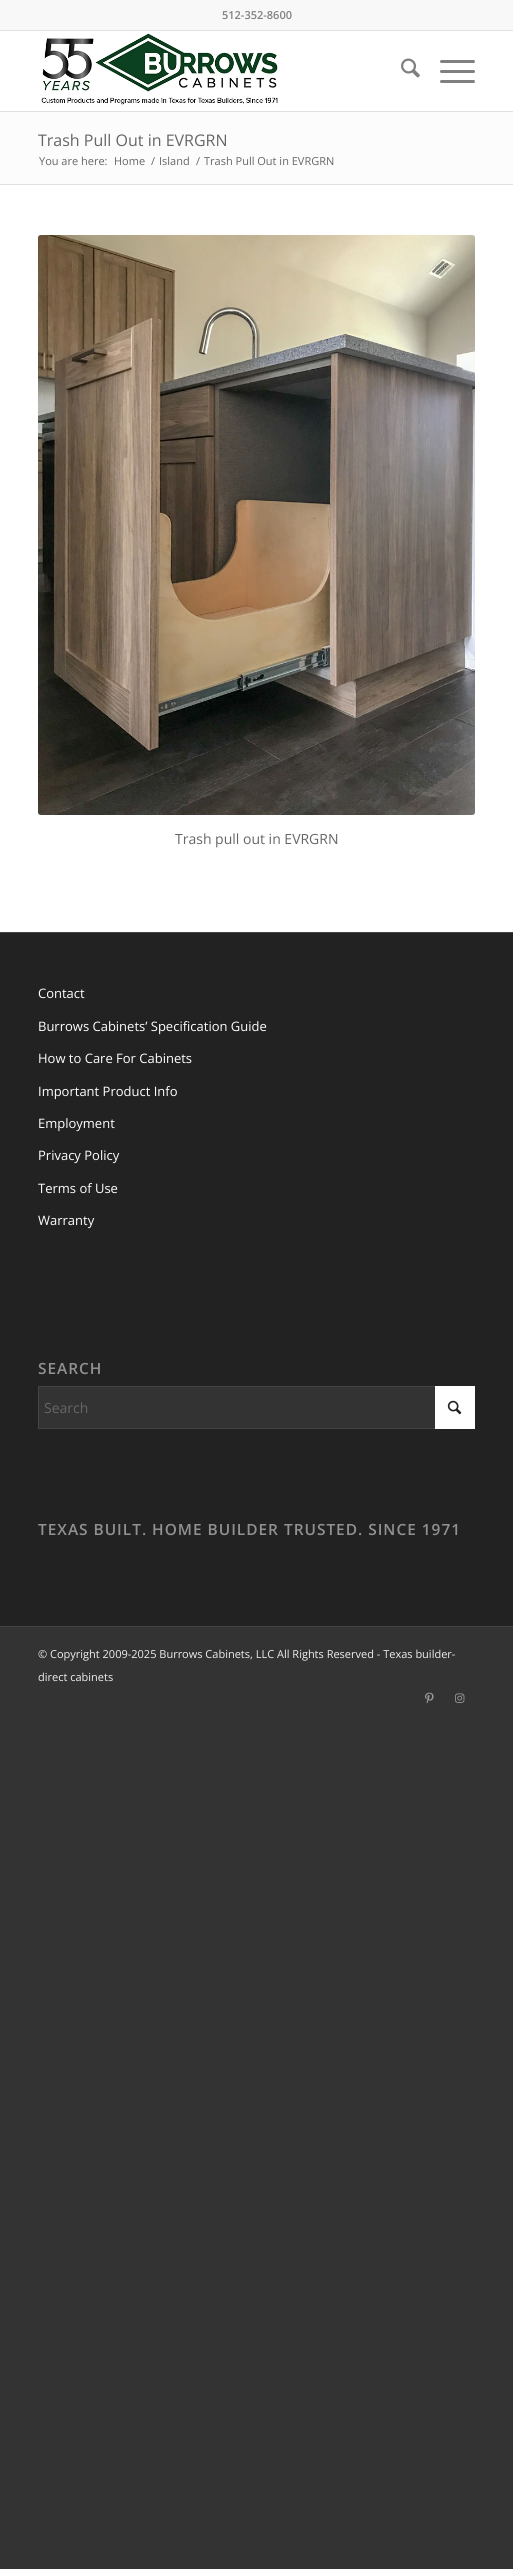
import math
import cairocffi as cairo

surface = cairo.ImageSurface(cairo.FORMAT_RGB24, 513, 2569)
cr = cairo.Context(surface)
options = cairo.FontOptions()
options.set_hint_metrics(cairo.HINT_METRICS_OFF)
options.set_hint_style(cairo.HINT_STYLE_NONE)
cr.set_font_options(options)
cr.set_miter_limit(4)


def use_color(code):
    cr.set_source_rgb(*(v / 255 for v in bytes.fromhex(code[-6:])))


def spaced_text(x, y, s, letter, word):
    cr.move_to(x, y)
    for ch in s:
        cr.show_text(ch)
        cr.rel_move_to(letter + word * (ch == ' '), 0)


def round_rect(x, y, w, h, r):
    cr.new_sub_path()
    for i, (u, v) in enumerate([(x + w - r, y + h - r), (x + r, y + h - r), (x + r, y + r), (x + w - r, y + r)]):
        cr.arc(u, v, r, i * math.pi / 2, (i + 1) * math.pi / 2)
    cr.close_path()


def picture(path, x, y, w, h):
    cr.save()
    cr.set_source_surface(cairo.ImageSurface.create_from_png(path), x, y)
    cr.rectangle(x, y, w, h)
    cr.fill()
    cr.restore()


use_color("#333333")
cr.paint()
use_color("#ffffff")
cr.rectangle(0, 31, 513, 901)
cr.fill()
use_color("#f8f8f8")
cr.rectangle(0, 0, 513, 30)
cr.fill()
use_color("#e1e1e1")
cr.rectangle(0, 30, 513, 1)
cr.fill()
cr.select_font_face("Open Sans SemiBold")
cr.set_font_size(11)
use_color("#808080")
cr.move_to(222, 19)
cr.show_text("512-352-8600")
use_color("#e1e1e1")
cr.rectangle(0, 111, 513, 1)
cr.fill()
picture("img1.png", 41, 33, 237, 72)
picture("img2.png", 401, 58, 19, 20)
use_color("#808080")
round_rect(440, 70, 35, 3, 1.5)
cr.fill()
round_rect(440, 60, 35, 3, 1.5)
cr.fill()
round_rect(440, 80, 35, 3, 1.5)
cr.fill()
use_color("#fcfcfc")
cr.rectangle(0, 112, 513, 72)
cr.fill()
cr.select_font_face("Open Sans")
cr.set_font_size(16)
use_color("#666666")
cr.move_to(38, 146)
cr.show_text("Trash Pull Out in EVRGRN")
cr.set_font_size(11)
cr.move_to(39, 165)
cr.show_text("You are here:")
cr.move_to(114, 165)
cr.show_text("Home")
cr.move_to(151, 165)
cr.show_text("/")
cr.move_to(159, 165)
cr.show_text("Island")
cr.move_to(196, 165)
cr.show_text("/")
cr.move_to(204, 165)
cr.show_text("Trash Pull Out in EVRGRN")
use_color("#e1e1e1")
cr.rectangle(0, 184, 513, 1)
cr.fill()
picture("img3.png", 38, 235, 437, 580)
cr.set_font_size(14)
use_color("#666666")
cr.move_to(175, 844)
cr.show_text("Trash pull out in EVRGRN")
use_color("#222222")
cr.rectangle(0, 933, 513, 693)
cr.fill()
use_color("#444444")
cr.rectangle(0, 932, 513, 1)
cr.fill()
cr.set_font_size(13)
use_color("#ffffff")
cr.move_to(38, 998)
cr.show_text("Contact")
cr.move_to(38, 1031)
cr.show_text("Burrows Cabinets’ Specification Guide")
cr.move_to(38, 1063)
cr.show_text("How to Care For Cabinets")
cr.move_to(38, 1096)
cr.show_text("Important Product Info")
cr.move_to(38, 1128)
cr.show_text("Employment")
cr.move_to(38, 1160)
cr.show_text("Privacy Policy")
cr.move_to(38, 1193)
cr.show_text("Terms of Use")
cr.move_to(38, 1225)
cr.show_text("Warranty")
cr.select_font_face("Open Sans SemiBold")
cr.set_font_size(15.4)
use_color("#919191")
spaced_text(38, 1374, "SEARCH", 1, 0)
use_color("#333333")
cr.rectangle(39, 1387, 396, 41)
cr.fill()
cr.rectangle(38.5, 1386.5, 436, 42)
use_color("#444444")
cr.set_line_width(1)
cr.stroke()
use_color("#ffffff")
cr.rectangle(435, 1386, 40, 43)
cr.fill()
cr.select_font_face("Open Sans")
cr.set_font_size(14)
use_color("#666666")
cr.move_to(44, 1413)
cr.show_text("Search")
picture("img4.png", 447, 1400, 15, 15)
cr.select_font_face("Open Sans SemiBold")
cr.set_font_size(15.4)
use_color("#919191")
spaced_text(38, 1535, "TEXAS BUILT. HOME BUILDER TRUSTED. SINCE 1971", 1, 0)
use_color("#444444")
cr.rectangle(0, 1626, 513, 1)
cr.fill()
cr.select_font_face("Open Sans")
cr.set_font_size(11)
use_color("#eeeeee")
cr.move_to(38, 1658)
cr.show_text("© Copyright 2009-2025 Burrows Cabinets, LLC All Rights Reserved - Texas builder-")
cr.move_to(38, 1681)
cr.show_text("direct cabinets")
picture("img5.png", 425, 1692, 9, 12)
picture("img6.png", 455, 1693, 10, 10)
surface.write_to_png("result.png")
